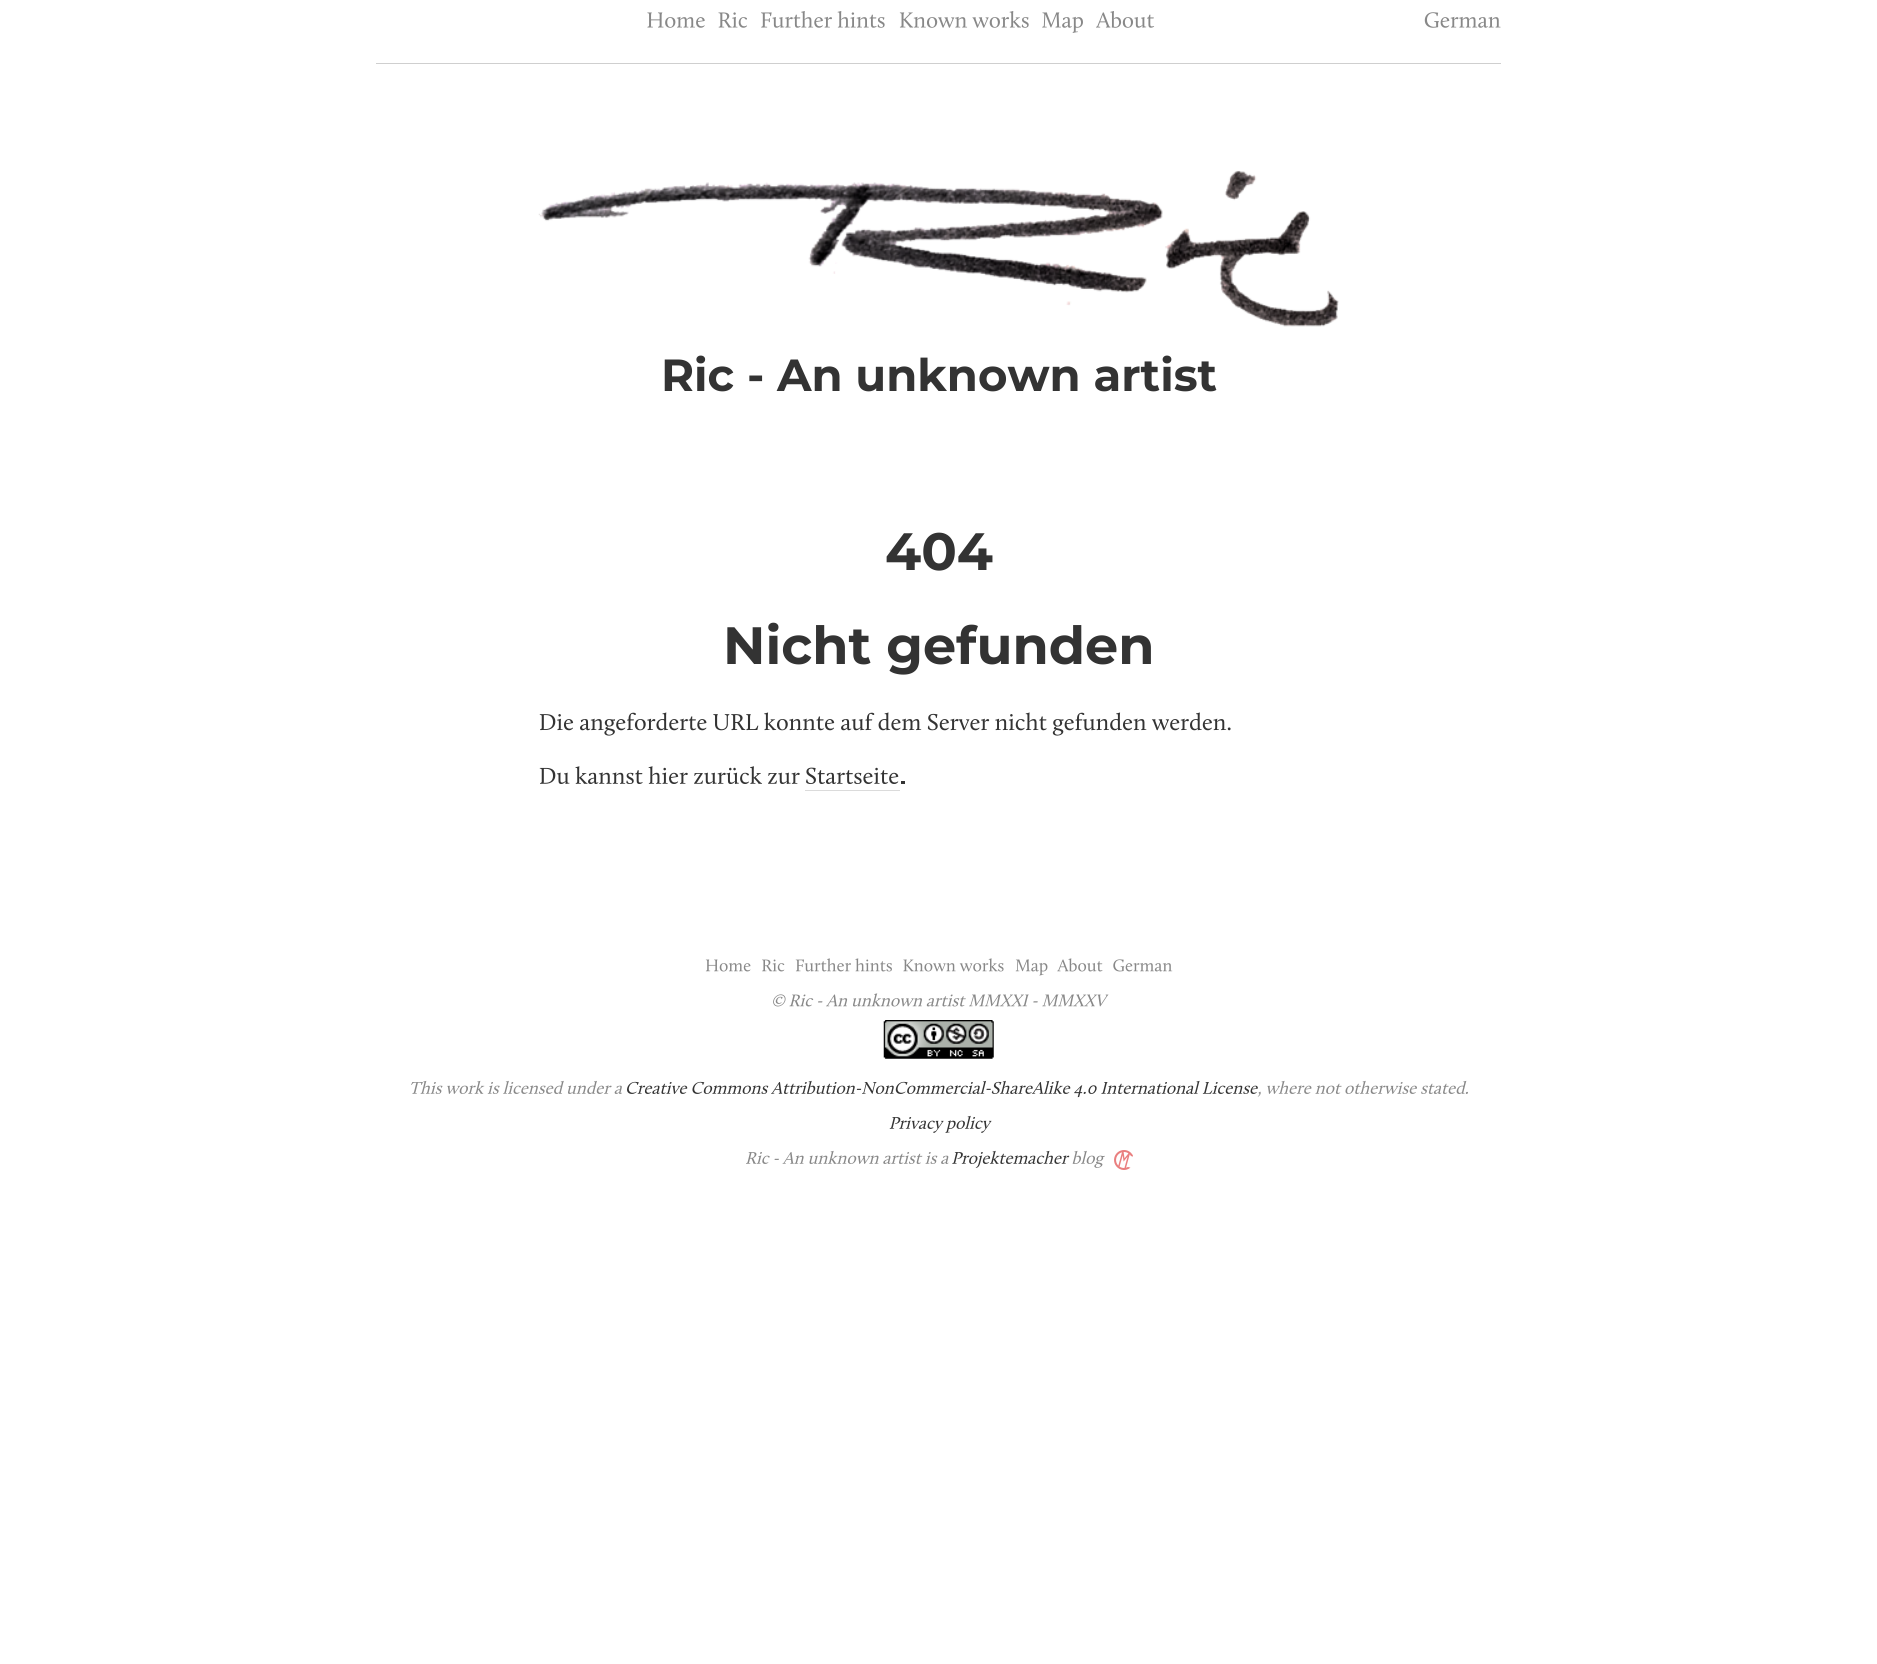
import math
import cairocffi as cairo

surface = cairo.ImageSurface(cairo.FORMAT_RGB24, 1877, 1664)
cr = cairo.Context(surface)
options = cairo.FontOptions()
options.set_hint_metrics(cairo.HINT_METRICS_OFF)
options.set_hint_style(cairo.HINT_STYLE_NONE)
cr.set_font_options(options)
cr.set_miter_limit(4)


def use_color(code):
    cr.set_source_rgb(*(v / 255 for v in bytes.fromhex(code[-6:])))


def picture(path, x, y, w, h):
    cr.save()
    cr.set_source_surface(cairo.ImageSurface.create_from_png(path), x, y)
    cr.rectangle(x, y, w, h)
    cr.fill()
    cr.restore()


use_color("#ffffff")
cr.paint()
use_color("#cfcfcf")
cr.rectangle(376, 63, 1125, 1)
cr.fill()
picture("img1.png", 647, 12, 58, 16)
picture("img2.png", 718, 12, 29, 16)
picture("img3.png", 761, 11, 124, 17)
picture("img4.png", 899, 11, 130, 17)
picture("img5.png", 1042, 12, 41, 21)
picture("img6.png", 1096, 11, 59, 17)
picture("img7.png", 1424, 12, 77, 16)
picture("img8.png", 538, 170, 801, 157)
cr.select_font_face("Montserrat Thin")
cr.set_font_size(45)
use_color("#333333")
cr.move_to(661, 391)
cr.show_text("Ric - An unknown artist")
cr.set_font_size(52.5)
cr.move_to(885, 570)
cr.show_text("404")
cr.move_to(723, 664)
cr.show_text("Nicht gefunden")
picture("img9.png", 539, 712, 692, 24)
picture("img10.png", 539, 766, 261, 18)
picture("img11.png", 806, 767, 93, 17)
cr.rectangle(901, 781, 4, 3)
cr.fill()
use_color("#dbdbdb")
cr.rectangle(805, 790, 95, 1)
cr.fill()
picture("img12.png", 705, 959, 46, 13)
picture("img13.png", 762, 959, 23, 13)
picture("img14.png", 795, 958, 97, 14)
picture("img15.png", 903, 958, 101, 14)
picture("img16.png", 1015, 959, 33, 17)
picture("img17.png", 1057, 958, 46, 14)
picture("img18.png", 1113, 959, 60, 13)
picture("img19.png", 773, 993, 336, 14)
picture("img20.png", 883, 1020, 111, 39)
picture("img21.png", 411, 1080, 211, 14)
picture("img22.png", 627, 1080, 631, 18)
picture("img23.png", 1257, 1080, 211, 17)
picture("img24.png", 889, 1115, 103, 18)
picture("img25.png", 746, 1150, 203, 14)
picture("img26.png", 952, 1150, 118, 18)
picture("img27.png", 1072, 1150, 33, 18)
picture("img28.png", 1114, 1150, 19, 20)
surface.write_to_png("result.png")
